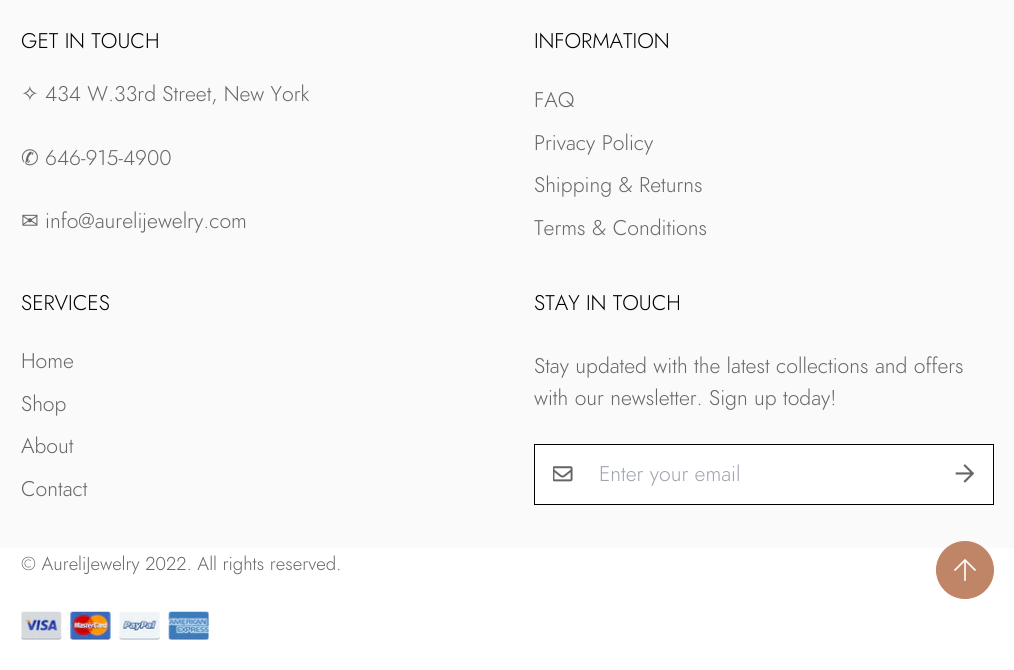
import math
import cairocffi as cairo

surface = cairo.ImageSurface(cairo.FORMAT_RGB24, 1014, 670)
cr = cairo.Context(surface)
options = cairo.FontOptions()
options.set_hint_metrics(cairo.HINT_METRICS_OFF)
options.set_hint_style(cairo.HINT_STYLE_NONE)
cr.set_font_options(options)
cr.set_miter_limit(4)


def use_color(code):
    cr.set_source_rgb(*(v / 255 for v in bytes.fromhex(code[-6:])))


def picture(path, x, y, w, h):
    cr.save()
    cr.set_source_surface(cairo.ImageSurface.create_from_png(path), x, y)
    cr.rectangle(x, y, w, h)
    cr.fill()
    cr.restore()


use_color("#fafafa")
cr.paint()
cr.select_font_face("Jost Light")
cr.set_font_size(21.25)
use_color("#000000")
cr.move_to(21, 48)
cr.show_text("GET IN TOUCH")
cr.select_font_face("DejaVu Sans")
use_color("#666666")
cr.move_to(21, 101)
cr.show_text("✧")
cr.select_font_face("Jost Light")
cr.move_to(45, 101)
cr.show_text("434 W.33rd Street, New York")
cr.select_font_face("DejaVu Sans")
cr.move_to(21, 165)
cr.show_text("✆")
cr.select_font_face("Jost Light")
cr.move_to(45, 165)
cr.show_text("646-915-4900")
cr.select_font_face("DejaVu Sans")
cr.move_to(21, 228)
cr.show_text("✉")
cr.select_font_face("Jost Light")
cr.move_to(45, 228)
cr.show_text("info@aurelijewelry.com")
use_color("#000000")
cr.move_to(534, 48)
cr.show_text("INFORMATION")
use_color("#666666")
cr.move_to(534, 107)
cr.show_text("FAQ")
cr.move_to(534, 150)
cr.show_text("Privacy Policy")
cr.move_to(534, 192)
cr.show_text("Shipping & Returns")
cr.move_to(534, 235)
cr.show_text("Terms & Conditions")
use_color("#000000")
cr.move_to(21, 310)
cr.show_text("SERVICES")
use_color("#666666")
cr.move_to(21, 368)
cr.show_text("Home")
cr.move_to(21, 411)
cr.show_text("Shop")
cr.move_to(21, 453)
cr.show_text("About")
cr.move_to(21, 496)
cr.show_text("Contact")
use_color("#000000")
cr.move_to(534, 310)
cr.show_text("STAY IN TOUCH")
use_color("#666666")
cr.move_to(534, 373)
cr.show_text("Stay updated with the latest collections and offers")
cr.move_to(534, 405)
cr.show_text("with our newsletter. Sign up today!")
use_color("#ffffff")
cr.rectangle(534.5, 444.5, 459, 60)
cr.fill_preserve()
use_color("#000000")
cr.set_line_width(1)
cr.stroke()
picture("img1.png", 553, 466, 20, 16)
use_color("#9ca3af")
cr.move_to(599, 481)
cr.show_text("Enter your email")
picture("img2.png", 955, 464, 20, 19)
use_color("#ffffff")
cr.rectangle(0, 548, 1014, 122)
cr.fill()
cr.set_font_size(18.6)
use_color("#666666")
cr.move_to(21, 570)
cr.show_text("© AureliJewelry 2022. All rights reserved.")
picture("img3.png", 21, 611, 188, 29)
use_color("#c08467")
cr.arc(965, 570, 28.5, 0, 2 * math.pi)
cr.fill_preserve()
cr.stroke()
picture("img4.png", 954, 559, 22, 22)
surface.write_to_png("result.png")
